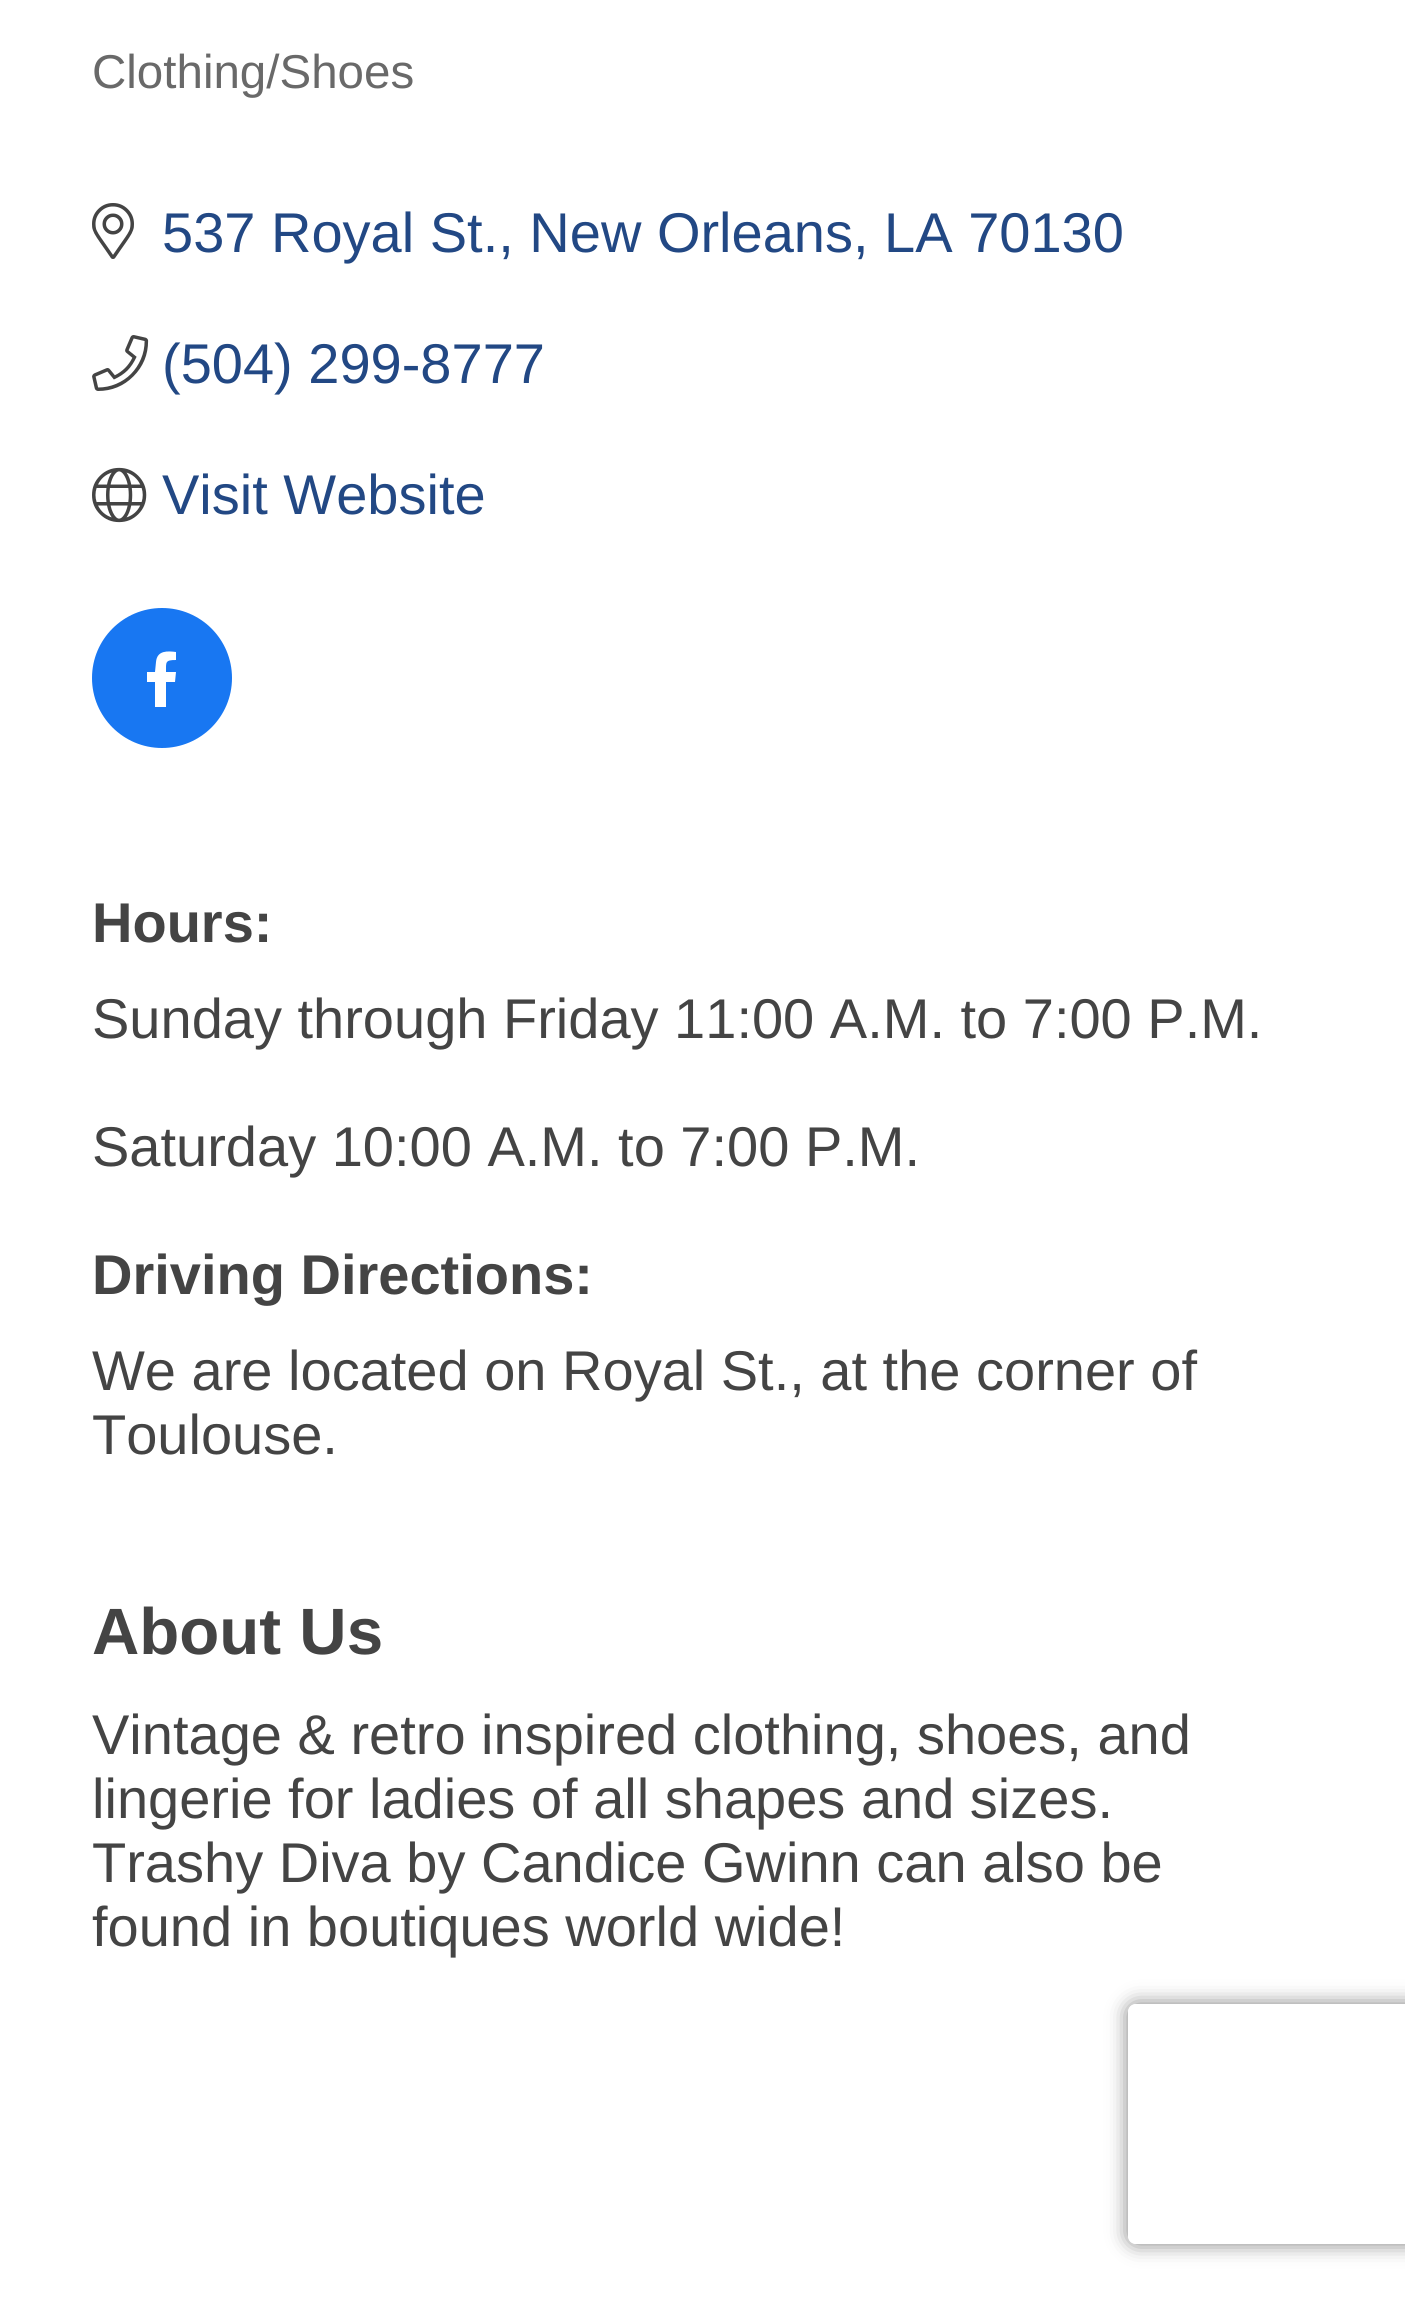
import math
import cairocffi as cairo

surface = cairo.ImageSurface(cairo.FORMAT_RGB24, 1405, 2297)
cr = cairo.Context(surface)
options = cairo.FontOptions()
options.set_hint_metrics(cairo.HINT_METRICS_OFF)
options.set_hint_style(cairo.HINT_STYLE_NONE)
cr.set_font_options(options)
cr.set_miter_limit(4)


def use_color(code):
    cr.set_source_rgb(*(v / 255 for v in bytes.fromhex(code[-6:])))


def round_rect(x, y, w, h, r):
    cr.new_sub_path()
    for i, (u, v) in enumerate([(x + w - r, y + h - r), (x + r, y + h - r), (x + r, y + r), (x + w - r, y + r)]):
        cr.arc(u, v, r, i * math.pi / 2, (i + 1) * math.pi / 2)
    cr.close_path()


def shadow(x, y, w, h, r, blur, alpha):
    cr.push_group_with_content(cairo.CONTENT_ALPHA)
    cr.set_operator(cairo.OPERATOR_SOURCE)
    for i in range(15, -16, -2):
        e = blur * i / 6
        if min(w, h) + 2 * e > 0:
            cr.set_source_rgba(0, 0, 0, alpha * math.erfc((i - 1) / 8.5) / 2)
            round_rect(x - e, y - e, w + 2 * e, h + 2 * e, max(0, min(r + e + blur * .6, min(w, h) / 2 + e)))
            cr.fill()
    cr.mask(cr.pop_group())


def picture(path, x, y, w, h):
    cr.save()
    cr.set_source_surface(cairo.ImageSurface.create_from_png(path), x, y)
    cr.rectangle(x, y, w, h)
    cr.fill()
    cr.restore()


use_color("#ffffff")
cr.paint()
cr.select_font_face("Liberation Sans")
cr.set_font_size(47.5)
use_color("#696969")
cr.move_to(92, 88)
cr.show_text("Clothing/Shoes")
picture("img1.png", 92, 203, 42, 56)
cr.set_font_size(56)
use_color("#224884")
cr.move_to(162, 252)
cr.show_text("537 Royal St., New Orleans, LA 70130")
picture("img2.png", 92, 335, 57, 56)
cr.move_to(162, 383)
cr.show_text("(504) 299-8777")
picture("img3.png", 92, 467, 55, 56)
cr.move_to(162, 514)
cr.show_text("Visit Website")
use_color("#1877f2")
cr.new_path()
cr.arc(162, 678, 70, 0, 2 * math.pi)
cr.fill()
use_color("#ffffff")
cr.new_path()
cr.move_to(175, 682)
cr.line_to(166, 682)
cr.line_to(166, 707)
cr.line_to(155, 707)
cr.line_to(155, 682)
cr.line_to(147, 682)
cr.line_to(147, 672)
cr.line_to(155, 672)
cr.line_to(156, 662)
cr.curve_to(157, 650, 168, 651, 176, 652)
cr.line_to(176, 660)
cr.curve_to(165, 660, 166, 662, 166, 672)
cr.line_to(176, 672)
cr.close_path()
cr.fill()
cr.select_font_face("Liberation Sans", cairo.FONT_SLANT_NORMAL, cairo.FONT_WEIGHT_BOLD)
use_color("#444444")
cr.move_to(92, 942)
cr.show_text("Hours:")
cr.select_font_face("Liberation Sans")
cr.move_to(92, 1038)
cr.show_text("Sunday through Friday 11:00 A.M. to 7:00 P.M.")
cr.move_to(92, 1166)
cr.show_text("Saturday 10:00 A.M. to 7:00 P.M.")
cr.select_font_face("Liberation Sans", cairo.FONT_SLANT_NORMAL, cairo.FONT_WEIGHT_BOLD)
cr.move_to(92, 1294)
cr.show_text("Driving Directions:")
cr.select_font_face("Liberation Sans")
cr.move_to(92, 1390)
cr.show_text("We are located on Royal St., at the corner of")
cr.move_to(92, 1454)
cr.show_text("Toulouse.")
cr.select_font_face("Liberation Sans", cairo.FONT_SLANT_NORMAL, cairo.FONT_WEIGHT_BOLD)
cr.set_font_size(65.5)
cr.move_to(92, 1654)
cr.show_text("About Us")
cr.select_font_face("Liberation Sans")
cr.set_font_size(56)
cr.move_to(92, 1754)
cr.show_text("Vintage & retro inspired clothing, shoes, and")
cr.move_to(92, 1818)
cr.show_text("lingerie for ladies of all shapes and sizes.")
cr.move_to(92, 1882)
cr.show_text("Trashy Diva by Candice Gwinn can also be")
cr.move_to(92, 1946)
cr.show_text("found in boutiques world wide!")
cr.save()
cr.set_fill_rule(cairo.FILL_RULE_EVEN_ODD)
cr.new_path()
cr.move_to(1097, 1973)
cr.line_to(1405, 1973)
cr.line_to(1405, 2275)
cr.line_to(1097, 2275)
cr.close_path()
cr.move_to(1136, 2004)
cr.line_to(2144, 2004)
cr.curve_to(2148.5, 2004, 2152, 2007.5, 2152, 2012)
cr.line_to(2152, 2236)
cr.curve_to(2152, 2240.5, 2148.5, 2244, 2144, 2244)
cr.line_to(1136, 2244)
cr.curve_to(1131.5, 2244, 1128, 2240.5, 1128, 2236)
cr.line_to(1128, 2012)
cr.curve_to(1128, 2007.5, 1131.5, 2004, 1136, 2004)
cr.close_path()
cr.clip()
use_color("#808080")
shadow(1128, 2004, 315, 240, 8, 10, 1)
cr.restore()
surface.write_to_png("result.png")
